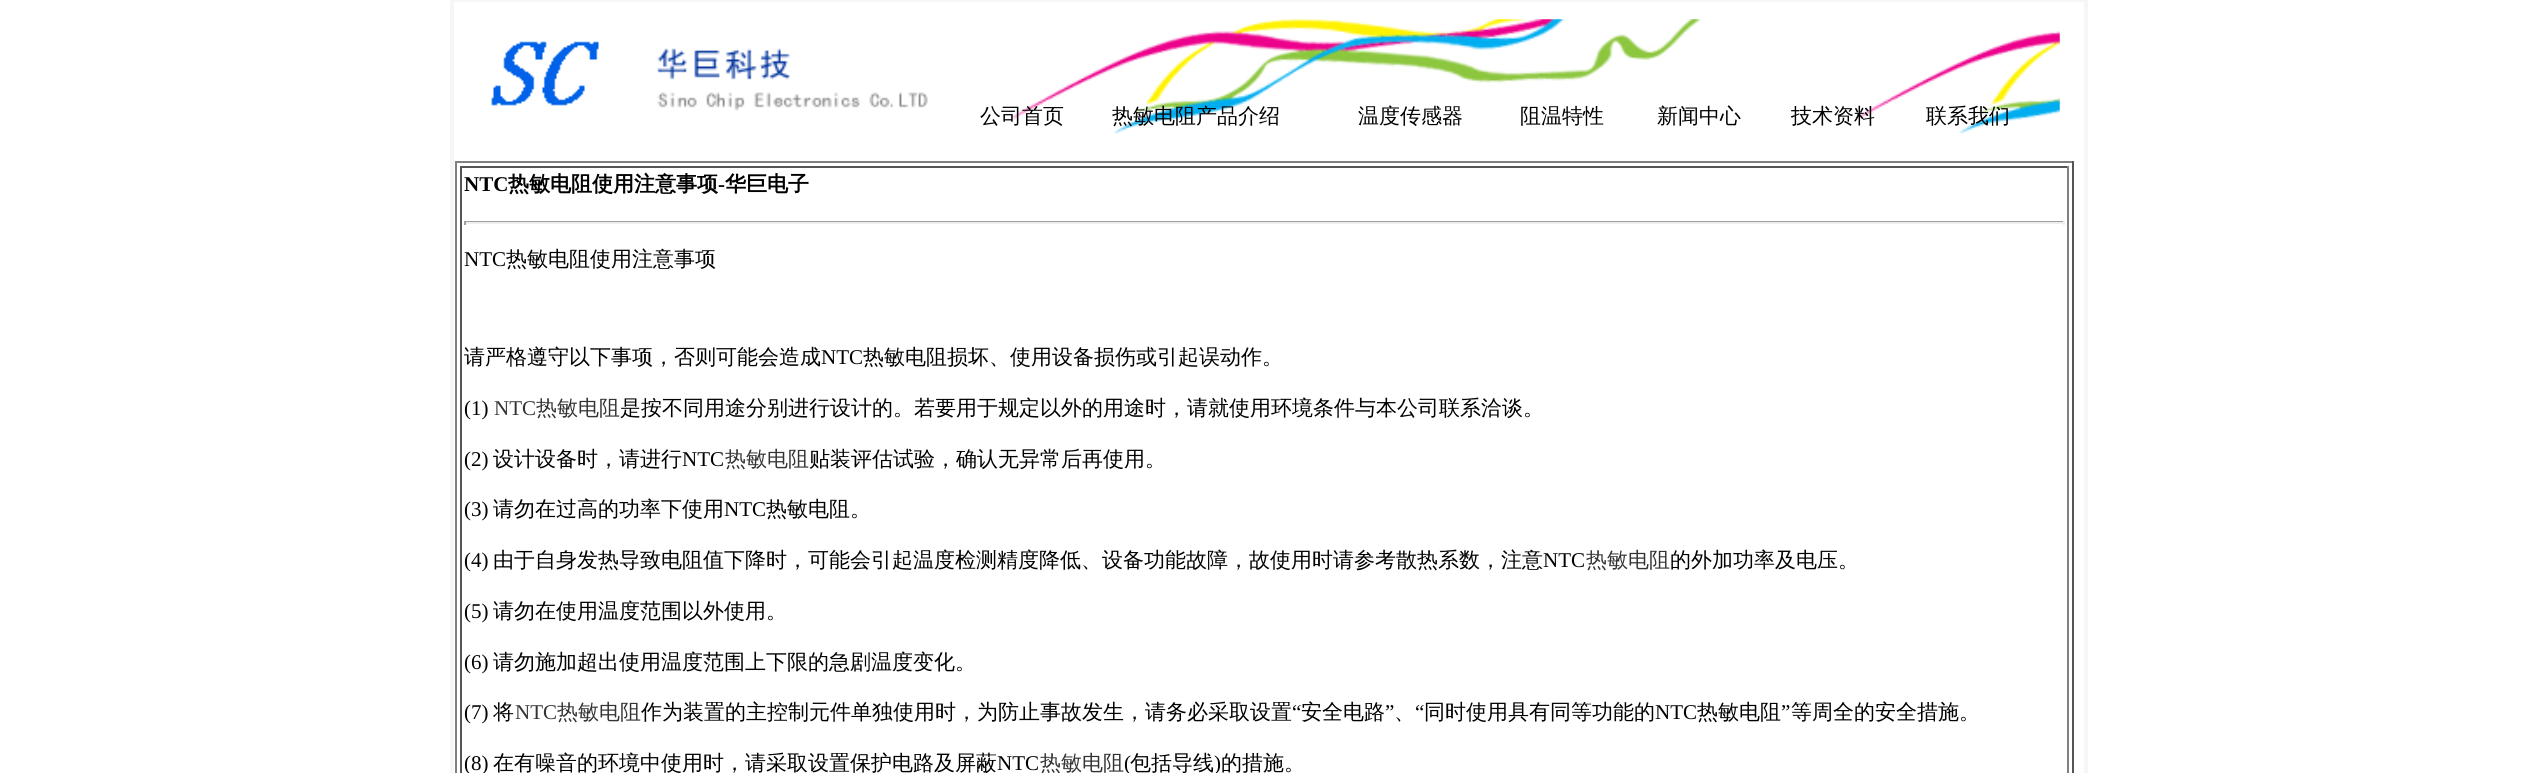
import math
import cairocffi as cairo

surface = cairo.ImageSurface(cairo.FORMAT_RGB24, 2536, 773)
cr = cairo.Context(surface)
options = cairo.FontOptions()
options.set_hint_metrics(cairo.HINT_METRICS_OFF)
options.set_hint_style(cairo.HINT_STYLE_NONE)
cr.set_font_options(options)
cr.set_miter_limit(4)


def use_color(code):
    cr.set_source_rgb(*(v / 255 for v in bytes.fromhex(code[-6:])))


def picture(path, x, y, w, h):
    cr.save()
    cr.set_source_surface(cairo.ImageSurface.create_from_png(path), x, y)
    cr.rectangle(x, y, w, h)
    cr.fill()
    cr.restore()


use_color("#ffffff")
cr.paint()
use_color("#f6f6f6")
cr.rectangle(450, 0, 1638, 2)
cr.fill()
cr.rectangle(2084, 0, 4, 773)
cr.fill()
cr.rectangle(450, 0, 4, 773)
cr.fill()
picture("img1.png", 491, 41, 437, 70)
picture("img2.png", 1011, 19, 1049, 115)
cr.select_font_face("WenQuanYi Zen Hei Medium")
cr.set_font_size(21)
use_color("#000000")
cr.move_to(980, 123)
cr.show_text("公司首页")
cr.move_to(1112, 123)
cr.show_text("热敏电阻产品介绍")
cr.move_to(1358, 123)
cr.show_text("温度传感器")
cr.move_to(1520, 123)
cr.show_text("阻温特性")
cr.move_to(1657, 123)
cr.show_text("新闻中心")
cr.move_to(1791, 123)
cr.show_text("技术资料")
cr.move_to(1926, 123)
cr.show_text("联系我们")
use_color("#808080")
cr.rectangle(455, 161, 1619, 2)
cr.fill()
use_color("#555555")
cr.rectangle(2072, 161, 2, 612)
cr.fill()
use_color("#808080")
cr.rectangle(455, 161, 2, 612)
cr.fill()
use_color("#555555")
cr.rectangle(460, 166, 1609, 2)
cr.fill()
use_color("#808080")
cr.rectangle(2067, 166, 2, 607)
cr.fill()
use_color("#555555")
cr.rectangle(460, 166, 2, 607)
cr.fill()
cr.select_font_face("Liberation Serif", cairo.FONT_SLANT_NORMAL, cairo.FONT_WEIGHT_BOLD)
use_color("#000000")
cr.move_to(464, 191)
cr.show_text("NTC")
cr.select_font_face("WenQuanYi Zen Hei", cairo.FONT_SLANT_NORMAL, cairo.FONT_WEIGHT_BOLD)
cr.move_to(508, 191)
cr.show_text("热敏电阻使用注意事项")
cr.select_font_face("Liberation Serif", cairo.FONT_SLANT_NORMAL, cairo.FONT_WEIGHT_BOLD)
cr.move_to(718, 191)
cr.show_text("-")
cr.select_font_face("WenQuanYi Zen Hei", cairo.FONT_SLANT_NORMAL, cairo.FONT_WEIGHT_BOLD)
cr.move_to(725, 191)
cr.show_text("华巨电子")
use_color("#9f9f9f")
cr.rectangle(464, 221, 1601, 1)
cr.fill()
use_color("#eeeeee")
cr.rectangle(2063, 221, 2, 4)
cr.fill()
cr.rectangle(464, 222, 1601, 2)
cr.fill()
use_color("#9f9f9f")
cr.rectangle(464, 221, 2, 4)
cr.fill()
cr.select_font_face("Liberation Serif")
use_color("#000000")
cr.move_to(464, 266)
cr.show_text("NTC")
cr.select_font_face("WenQuanYi Zen Hei Medium")
cr.move_to(506, 266)
cr.show_text("热敏电阻使用注意事项")
cr.move_to(464, 364)
cr.show_text("请严格遵守以下事项，否则可能会造成")
cr.select_font_face("Liberation Serif")
cr.move_to(821, 364)
cr.show_text("NTC")
cr.select_font_face("WenQuanYi Zen Hei Medium")
cr.move_to(863, 364)
cr.show_text("热敏电阻损坏、使用设备损伤或引起误动作。")
cr.select_font_face("Liberation Serif")
cr.move_to(464, 415)
cr.show_text("(1)")
use_color("#333333")
cr.move_to(494, 415)
cr.show_text("NTC")
cr.select_font_face("WenQuanYi Zen Hei Medium")
cr.move_to(536, 415)
cr.show_text("热敏电阻")
use_color("#000000")
cr.move_to(620, 415)
cr.show_text("是按不同用途分别进行设计的。若要用于规定以外的用途时，请就使用环境条件与本公司联系洽谈。")
cr.select_font_face("Liberation Serif")
cr.move_to(464, 466)
cr.show_text("(2)")
cr.select_font_face("WenQuanYi Zen Hei Medium")
cr.move_to(493, 466)
cr.show_text("设计设备时，请进行")
cr.select_font_face("Liberation Serif")
cr.move_to(682, 466)
cr.show_text("NTC")
cr.select_font_face("WenQuanYi Zen Hei Medium")
use_color("#333333")
cr.move_to(725, 466)
cr.show_text("热敏电阻")
use_color("#000000")
cr.move_to(809, 466)
cr.show_text("贴装评估试验，确认无异常后再使用。")
cr.select_font_face("Liberation Serif")
cr.move_to(464, 516)
cr.show_text("(3)")
cr.select_font_face("WenQuanYi Zen Hei Medium")
cr.move_to(493, 516)
cr.show_text("请勿在过高的功率下使用")
cr.select_font_face("Liberation Serif")
cr.move_to(724, 516)
cr.show_text("NTC")
cr.select_font_face("WenQuanYi Zen Hei Medium")
cr.move_to(766, 516)
cr.show_text("热敏电阻。")
cr.select_font_face("Liberation Serif")
cr.move_to(464, 567)
cr.show_text("(4)")
cr.select_font_face("WenQuanYi Zen Hei Medium")
cr.move_to(493, 567)
cr.show_text("由于自身发热导致电阻值下降时，可能会引起温度检测精度降低、设备功能故障，故使用时请参考散热系数，注意")
cr.select_font_face("Liberation Serif")
cr.move_to(1543, 567)
cr.show_text("NTC")
cr.select_font_face("WenQuanYi Zen Hei Medium")
use_color("#333333")
cr.move_to(1586, 567)
cr.show_text("热敏电阻")
use_color("#000000")
cr.move_to(1670, 567)
cr.show_text("的外加功率及电压。")
cr.select_font_face("Liberation Serif")
cr.move_to(464, 618)
cr.show_text("(5)")
cr.select_font_face("WenQuanYi Zen Hei Medium")
cr.move_to(493, 618)
cr.show_text("请勿在使用温度范围以外使用。")
cr.select_font_face("Liberation Serif")
cr.move_to(464, 669)
cr.show_text("(6)")
cr.select_font_face("WenQuanYi Zen Hei Medium")
cr.move_to(493, 669)
cr.show_text("请勿施加超出使用温度范围上下限的急剧温度变化。")
cr.select_font_face("Liberation Serif")
cr.move_to(464, 719)
cr.show_text("(7)")
cr.select_font_face("WenQuanYi Zen Hei Medium")
cr.move_to(493, 719)
cr.show_text("将")
cr.select_font_face("Liberation Serif")
use_color("#333333")
cr.move_to(515, 719)
cr.show_text("NTC")
cr.select_font_face("WenQuanYi Zen Hei Medium")
cr.move_to(557, 719)
cr.show_text("热敏电阻")
use_color("#000000")
cr.move_to(641, 719)
cr.show_text("作为装置的主控制元件单独使用时，为防止事故发生，请务必采取设置")
cr.select_font_face("Liberation Serif")
cr.move_to(1292, 719)
cr.show_text("“")
cr.select_font_face("WenQuanYi Zen Hei Medium")
cr.move_to(1301, 719)
cr.show_text("安全电路")
cr.select_font_face("Liberation Serif")
cr.move_to(1385, 719)
cr.show_text("”")
cr.move_to(1415, 719)
cr.show_text("“")
cr.select_font_face("WenQuanYi Zen Hei Medium")
cr.move_to(1424, 719)
cr.show_text("同时使用具有同等功能的")
cr.select_font_face("Liberation Serif")
cr.move_to(1655, 719)
cr.show_text("NTC")
cr.select_font_face("WenQuanYi Zen Hei Medium")
cr.move_to(1697, 719)
cr.show_text("热敏电阻")
cr.select_font_face("Liberation Serif")
cr.move_to(1781, 719)
cr.show_text("”")
cr.select_font_face("WenQuanYi Zen Hei Medium")
cr.move_to(1791, 719)
cr.show_text("等周全的安全措施。")
cr.move_to(1394, 719)
cr.show_text("、")
cr.select_font_face("Liberation Serif")
cr.move_to(464, 770)
cr.show_text("(8)")
cr.select_font_face("WenQuanYi Zen Hei Medium")
cr.move_to(493, 770)
cr.show_text("在有噪音的环境中使用时，请采取设置保护电路及屏蔽")
cr.select_font_face("Liberation Serif")
cr.move_to(997, 770)
cr.show_text("NTC")
cr.select_font_face("WenQuanYi Zen Hei Medium")
use_color("#333333")
cr.move_to(1040, 770)
cr.show_text("热敏电阻")
cr.select_font_face("Liberation Serif")
use_color("#000000")
cr.move_to(1124, 770)
cr.show_text("(")
cr.select_font_face("WenQuanYi Zen Hei Medium")
cr.move_to(1130, 770)
cr.show_text("包括导线")
cr.select_font_face("Liberation Serif")
cr.move_to(1214, 770)
cr.show_text(")")
cr.select_font_face("WenQuanYi Zen Hei Medium")
cr.move_to(1221, 770)
cr.show_text("的措施。")
surface.write_to_png("result.png")
